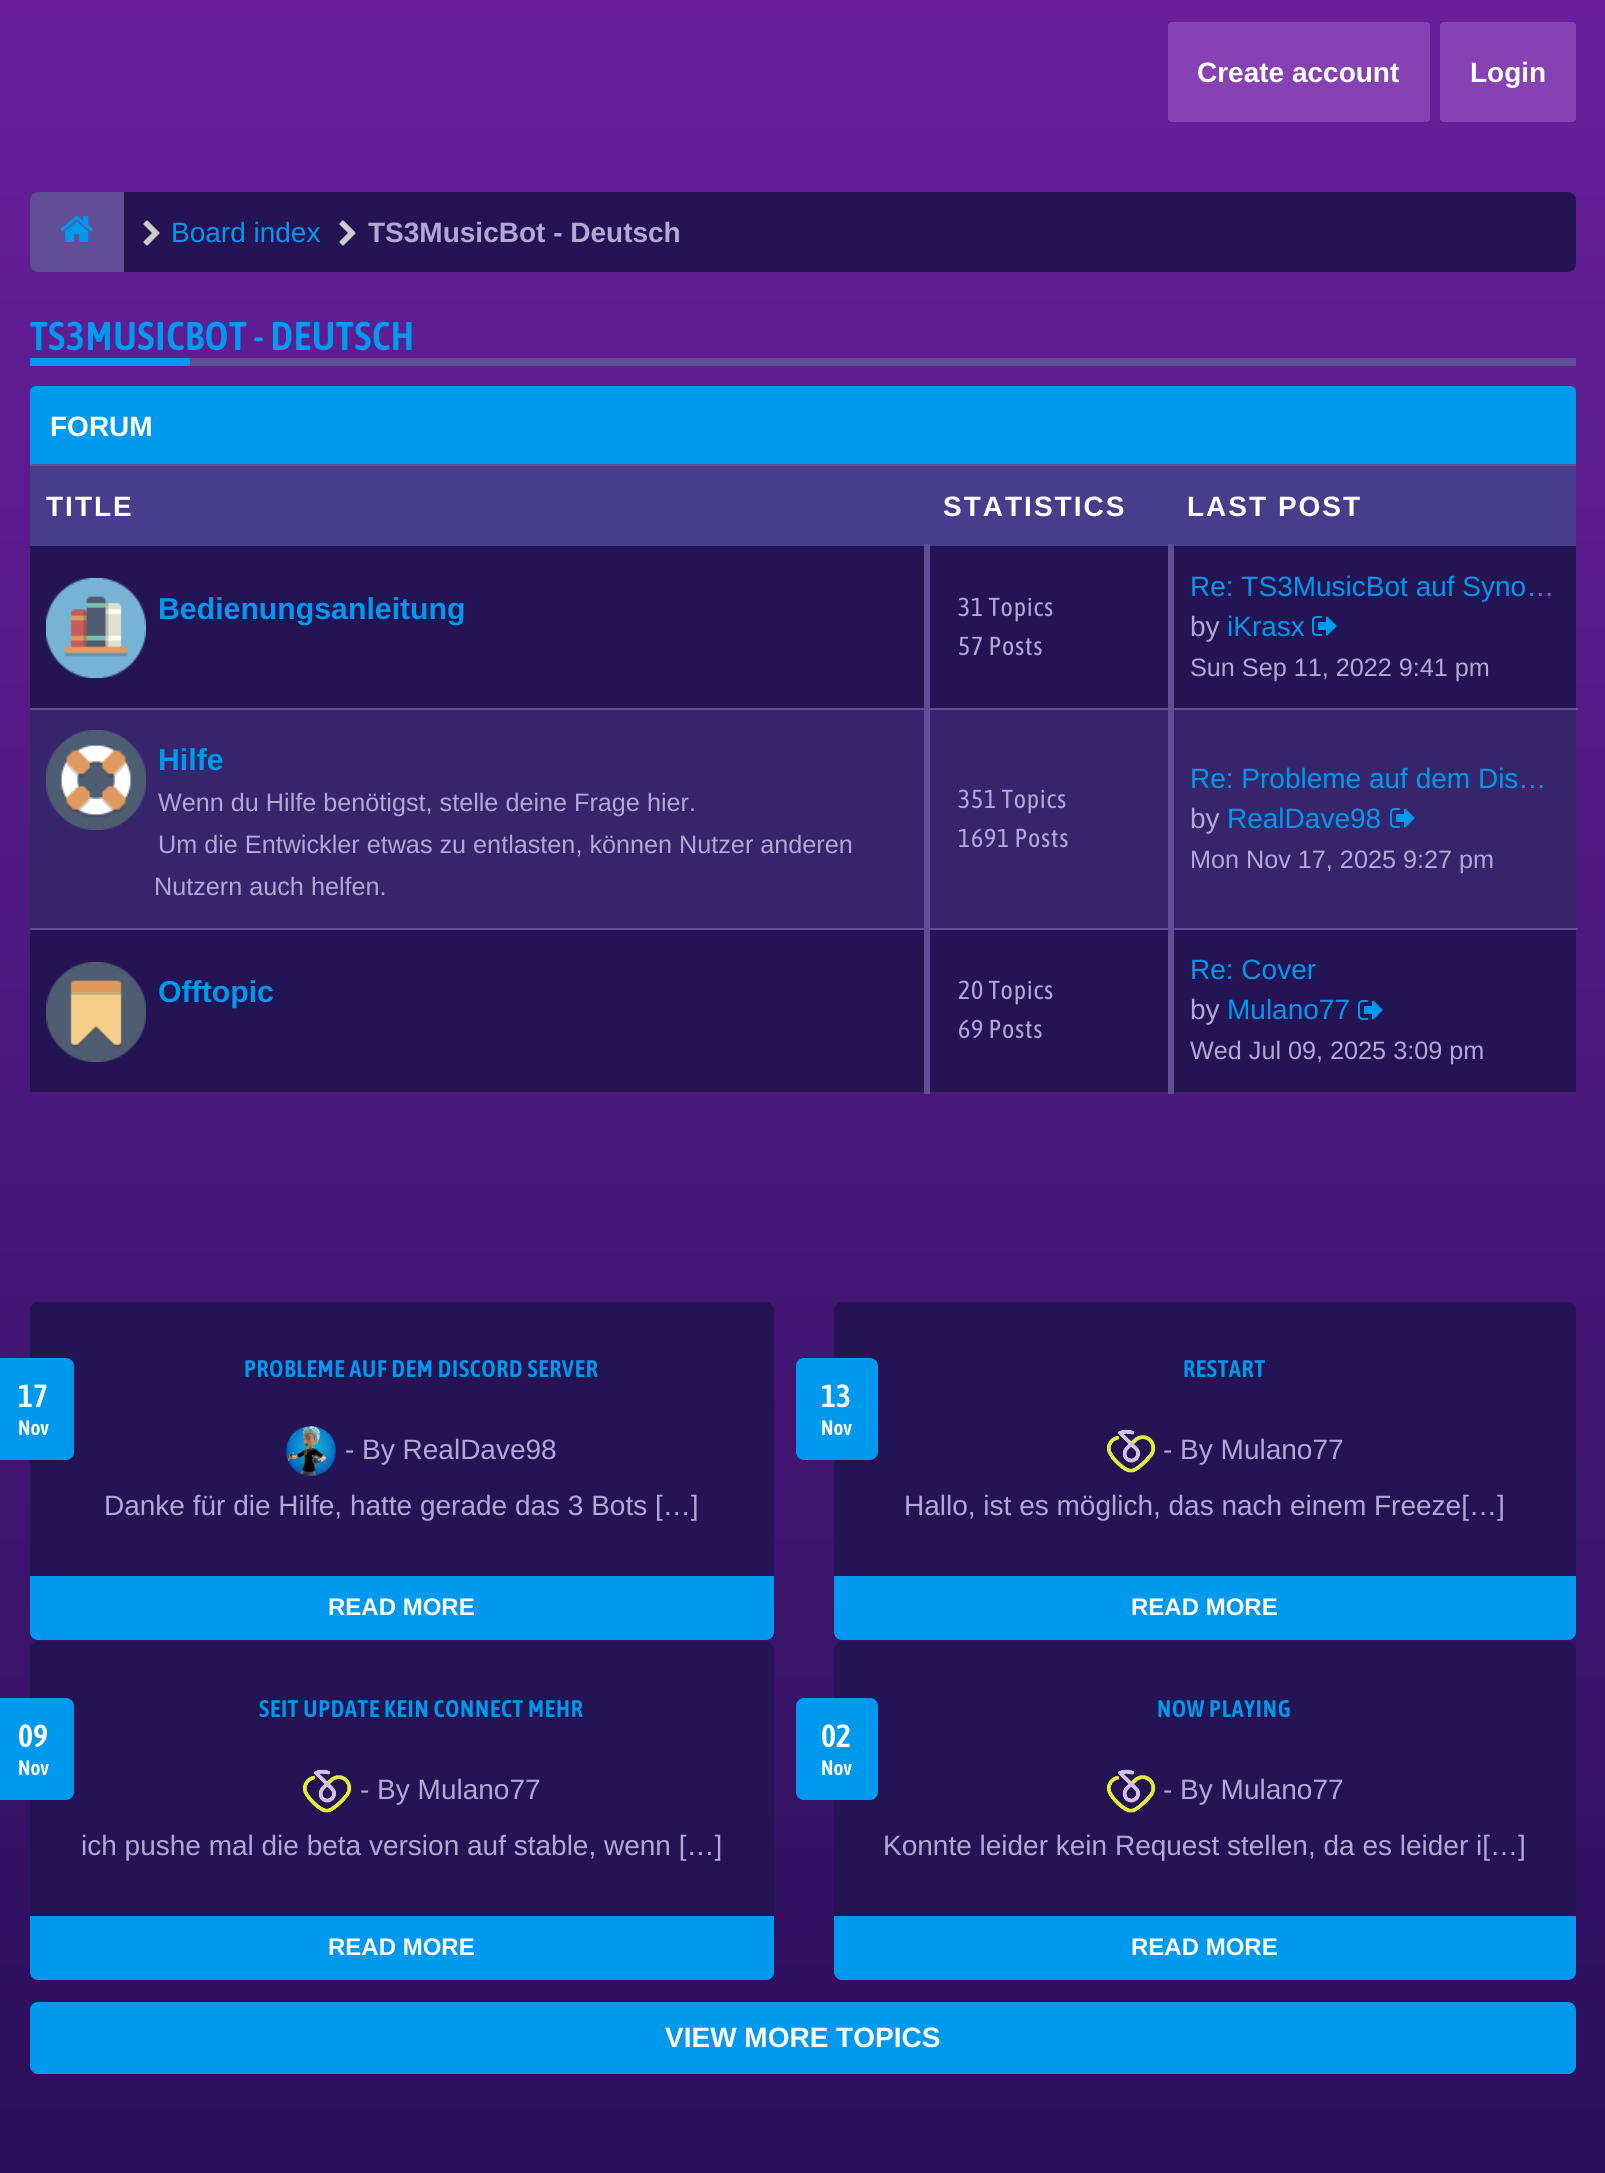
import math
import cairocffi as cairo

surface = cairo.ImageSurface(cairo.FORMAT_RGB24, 1605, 2173)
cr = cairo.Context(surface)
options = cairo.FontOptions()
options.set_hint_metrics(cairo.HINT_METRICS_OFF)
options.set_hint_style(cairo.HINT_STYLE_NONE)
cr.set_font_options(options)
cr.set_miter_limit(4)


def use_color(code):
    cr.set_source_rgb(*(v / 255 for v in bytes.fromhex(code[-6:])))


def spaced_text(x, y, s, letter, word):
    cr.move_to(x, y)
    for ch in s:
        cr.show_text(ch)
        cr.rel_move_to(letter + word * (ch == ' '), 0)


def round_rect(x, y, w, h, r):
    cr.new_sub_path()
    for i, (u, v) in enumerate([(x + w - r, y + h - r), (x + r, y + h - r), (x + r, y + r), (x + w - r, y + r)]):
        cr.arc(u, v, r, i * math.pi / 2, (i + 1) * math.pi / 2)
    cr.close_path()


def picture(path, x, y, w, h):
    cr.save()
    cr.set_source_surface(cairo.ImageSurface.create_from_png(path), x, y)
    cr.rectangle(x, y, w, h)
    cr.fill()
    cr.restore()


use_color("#ffffff")
cr.paint()
gradient = cairo.LinearGradient(803, -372, 803, 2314)
gradient.add_color_stop_rgba(0, 0.455, 0.133, 0.659, 1)
gradient.add_color_stop_rgba(1, 0.149, 0.059, 0.337, 1)
cr.set_source(gradient)
cr.rectangle(0, 0, 1605, 2173)
cr.fill()
use_color("#8642b2")
round_rect(1168, 22, 262, 100, 4)
cr.fill()
cr.select_font_face("Liberation Sans", cairo.FONT_SLANT_NORMAL, cairo.FONT_WEIGHT_BOLD)
cr.set_font_size(28)
use_color("#ffffff")
cr.move_to(1197, 82)
cr.show_text("Create account")
use_color("#8642b2")
round_rect(1440, 22, 136, 100, 4)
cr.fill()
use_color("#ffffff")
cr.move_to(1470, 82)
cr.show_text("Login")
use_color("#241454")
round_rect(30, 192, 1546, 80, 8)
cr.fill()
use_color("#604e96")
cr.new_path()
cr.move_to(38, 192)
cr.line_to(124, 192)
cr.line_to(124, 272)
cr.line_to(38, 272)
cr.curve_to(33.5, 272, 30, 268.5, 30, 264)
cr.line_to(30, 200)
cr.curve_to(30, 195.5, 33.5, 192, 38, 192)
cr.close_path()
cr.fill()
picture("img1.png", 60, 216, 33, 26)
picture("img2.png", 143, 220, 17, 26)
cr.select_font_face("Liberation Sans")
use_color("#0099ee")
cr.move_to(171, 242)
cr.show_text("Board index")
picture("img2.png", 339, 220, 17, 26)
cr.select_font_face("Liberation Sans", cairo.FONT_SLANT_NORMAL, cairo.FONT_WEIGHT_BOLD)
use_color("#b2a7d6")
cr.move_to(368, 242)
cr.show_text("TS3MusicBot - Deutsch")
use_color("#604e96")
cr.rectangle(190, 358, 1386, 8)
cr.fill()
cr.select_font_face("Asap Condensed SemiBold")
cr.set_font_size(40)
use_color("#0099ee")
spaced_text(30, 350, "TS3MUSICBOT - DEUTSCH", 0.8, 0)
cr.rectangle(30, 358, 160, 8)
cr.fill()
cr.new_path()
cr.move_to(36, 386)
cr.line_to(1570, 386)
cr.curve_to(1573.5, 386, 1576, 388.5, 1576, 392)
cr.line_to(1576, 466)
cr.line_to(30, 466)
cr.line_to(30, 392)
cr.curve_to(30, 388.5, 32.5, 386, 36, 386)
cr.close_path()
cr.fill()
use_color("#604e96")
cr.rectangle(30, 464, 1546, 2)
cr.fill()
cr.select_font_face("Liberation Sans", cairo.FONT_SLANT_NORMAL, cairo.FONT_WEIGHT_BOLD)
cr.set_font_size(28)
use_color("#ffffff")
cr.move_to(50, 436)
cr.show_text("FORUM")
use_color("#483d8b")
cr.rectangle(30, 466, 1546, 80)
cr.fill()
use_color("#ffffff")
spaced_text(46, 516, "TITLE", 2, 0)
spaced_text(943, 516, "STATISTICS", 2, 0)
spaced_text(1187, 516, "LAST POST", 2, 0)
use_color("#241454")
cr.rectangle(30, 546, 894, 162)
cr.fill()
picture("img3.png", 46, 578, 100, 100)
cr.set_font_size(30.25)
use_color("#0099ee")
cr.move_to(158, 619)
cr.show_text("Bedienungsanleitung")
use_color("#241454")
cr.rectangle(930, 546, 238, 162)
cr.fill()
cr.select_font_face("Asap Condensed")
cr.set_font_size(26)
use_color("#b2a7d6")
spaced_text(958, 616, "31 Topics", 0.8, 0)
spaced_text(958, 655, "57 Posts", 0.8, 0)
use_color("#241454")
cr.rectangle(1174, 546, 402, 162)
cr.fill()
cr.select_font_face("Liberation Sans")
cr.set_font_size(28)
use_color("#0099ee")
cr.move_to(1190, 596)
cr.show_text("Re: TS3MusicBot auf Syno…")
use_color("#b2a7d6")
cr.move_to(1190, 636)
cr.show_text("by")
use_color("#0099ee")
cr.move_to(1227, 636)
cr.show_text("iKrasx")
picture("img4.png", 1312, 616, 25, 20)
cr.set_font_size(25.2)
use_color("#b2a7d6")
cr.move_to(1190, 676)
cr.show_text("Sun Sep 11, 2022 9:41 pm")
use_color("#36256b")
cr.rectangle(30, 710, 894, 218)
cr.fill()
picture("img5.png", 46, 730, 100, 100)
cr.select_font_face("Liberation Sans", cairo.FONT_SLANT_NORMAL, cairo.FONT_WEIGHT_BOLD)
cr.set_font_size(30.25)
use_color("#0099ee")
cr.move_to(158, 770)
cr.show_text("Hilfe")
cr.select_font_face("Liberation Sans")
cr.set_font_size(25.2)
use_color("#b2a7d6")
cr.move_to(158, 811)
cr.show_text("Wenn du Hilfe benötigst, stelle deine Frage hier.")
cr.move_to(158, 853)
cr.show_text("Um die Entwickler etwas zu entlasten, können Nutzer anderen")
cr.move_to(154, 895)
cr.show_text("Nutzern auch helfen.")
use_color("#36256b")
cr.rectangle(930, 710, 238, 218)
cr.fill()
cr.select_font_face("Asap Condensed")
cr.set_font_size(26)
use_color("#b2a7d6")
spaced_text(958, 808, "351 Topics", 0.8, 0)
spaced_text(958, 847, "1691 Posts", 0.8, 0)
use_color("#36256b")
cr.rectangle(1174, 710, 402, 218)
cr.fill()
use_color("#604e96")
cr.rectangle(30, 708, 1548, 2)
cr.fill()
cr.select_font_face("Liberation Sans")
cr.set_font_size(28)
use_color("#0099ee")
cr.move_to(1190, 788)
cr.show_text("Re: Probleme auf dem Dis…")
use_color("#b2a7d6")
cr.move_to(1190, 828)
cr.show_text("by")
use_color("#0099ee")
cr.move_to(1227, 828)
cr.show_text("RealDave98")
picture("img6.png", 1390, 808, 25, 20)
cr.set_font_size(25.2)
use_color("#b2a7d6")
cr.move_to(1190, 868)
cr.show_text("Mon Nov 17, 2025 9:27 pm")
use_color("#241454")
cr.rectangle(30, 930, 894, 162)
cr.fill()
picture("img7.png", 46, 962, 100, 100)
cr.select_font_face("Liberation Sans", cairo.FONT_SLANT_NORMAL, cairo.FONT_WEIGHT_BOLD)
cr.set_font_size(30.25)
use_color("#0099ee")
cr.move_to(158, 1002)
cr.show_text("Offtopic")
use_color("#241454")
cr.rectangle(930, 930, 238, 162)
cr.fill()
use_color("#604e96")
cr.rectangle(30, 928, 1548, 2)
cr.fill()
cr.rectangle(1168, 544, 6, 550)
cr.fill()
cr.rectangle(924, 544, 6, 550)
cr.fill()
cr.select_font_face("Asap Condensed")
cr.set_font_size(26)
use_color("#b2a7d6")
spaced_text(958, 999, "20 Topics", 0.8, 0)
spaced_text(958, 1038, "69 Posts", 0.8, 0)
use_color("#241454")
cr.rectangle(1174, 930, 402, 162)
cr.fill()
cr.select_font_face("Liberation Sans")
cr.set_font_size(28)
use_color("#0099ee")
cr.move_to(1190, 979)
cr.show_text("Re: Cover")
use_color("#b2a7d6")
cr.move_to(1190, 1019)
cr.show_text("by")
use_color("#0099ee")
cr.move_to(1227, 1019)
cr.show_text("Mulano77")
picture("img4.png", 1358, 1000, 25, 20)
cr.set_font_size(25.2)
use_color("#b2a7d6")
cr.move_to(1190, 1059)
cr.show_text("Wed Jul 09, 2025 3:09 pm")
use_color("#241454")
round_rect(30, 1302, 744, 320, 8)
cr.fill()
use_color("#0099ee")
round_rect(-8, 1358, 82, 102, 8)
cr.fill()
cr.select_font_face("Asap Condensed SemiBold")
cr.set_font_size(32)
use_color("#ffffff")
cr.move_to(18, 1407)
cr.show_text("17")
cr.set_font_size(21)
cr.move_to(18, 1435)
cr.show_text("Nov")
cr.set_font_size(24)
use_color("#0099ee")
spaced_text(244, 1377, "PROBLEME AUF DEM DISCORD SERVER", 0.8, 0)
picture("img8.png", 286, 1426, 50, 50)
cr.select_font_face("Liberation Sans")
cr.set_font_size(28)
use_color("#b2a7d6")
cr.move_to(345, 1459)
cr.show_text("- By RealDave98")
cr.move_to(104, 1515)
cr.show_text("Danke für die Hilfe, hatte gerade das 3 Bots […]")
use_color("#0099ee")
cr.new_path()
cr.move_to(30, 1576)
cr.line_to(774, 1576)
cr.line_to(774, 1632)
cr.curve_to(774, 1636.5, 770.5, 1640, 766, 1640)
cr.line_to(38, 1640)
cr.curve_to(33.5, 1640, 30, 1636.5, 30, 1632)
cr.close_path()
cr.fill()
cr.select_font_face("Liberation Sans", cairo.FONT_SLANT_NORMAL, cairo.FONT_WEIGHT_BOLD)
cr.set_font_size(24)
use_color("#ffffff")
cr.move_to(328, 1615)
cr.show_text("READ MORE")
use_color("#241454")
round_rect(834, 1302, 742, 320, 8)
cr.fill()
use_color("#0099ee")
round_rect(796, 1358, 82, 102, 8)
cr.fill()
cr.select_font_face("Asap Condensed SemiBold")
cr.set_font_size(32)
use_color("#ffffff")
cr.move_to(821, 1407)
cr.show_text("13")
cr.set_font_size(21)
cr.move_to(821, 1435)
cr.show_text("Nov")
cr.set_font_size(24)
use_color("#0099ee")
spaced_text(1183, 1377, "RESTART", 0.8, 0)
picture("img9.png", 1106, 1429, 50, 44)
cr.select_font_face("Liberation Sans")
cr.set_font_size(28)
use_color("#b2a7d6")
cr.move_to(1163, 1459)
cr.show_text("- By Mulano77")
cr.move_to(904, 1515)
cr.show_text("Hallo, ist es möglich, das nach einem Freeze[…]")
use_color("#0099ee")
cr.new_path()
cr.move_to(834, 1576)
cr.line_to(1576, 1576)
cr.line_to(1576, 1632)
cr.curve_to(1576, 1636.5, 1572.5, 1640, 1568, 1640)
cr.line_to(842, 1640)
cr.curve_to(837.5, 1640, 834, 1636.5, 834, 1632)
cr.close_path()
cr.fill()
cr.select_font_face("Liberation Sans", cairo.FONT_SLANT_NORMAL, cairo.FONT_WEIGHT_BOLD)
cr.set_font_size(24)
use_color("#ffffff")
cr.move_to(1131, 1615)
cr.show_text("READ MORE")
use_color("#241454")
round_rect(30, 1642, 744, 320, 8)
cr.fill()
use_color("#0099ee")
round_rect(-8, 1698, 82, 102, 8)
cr.fill()
cr.select_font_face("Asap Condensed SemiBold")
cr.set_font_size(32)
use_color("#ffffff")
cr.move_to(18, 1747)
cr.show_text("09")
cr.set_font_size(21)
cr.move_to(18, 1775)
cr.show_text("Nov")
cr.set_font_size(24)
use_color("#0099ee")
spaced_text(259, 1717, "SEIT UPDATE KEIN CONNECT MEHR", 0.8, 0)
picture("img10.png", 302, 1769, 50, 44)
cr.select_font_face("Liberation Sans")
cr.set_font_size(28)
use_color("#b2a7d6")
cr.move_to(360, 1799)
cr.show_text("- By Mulano77")
cr.move_to(81, 1855)
cr.show_text("ich pushe mal die beta version auf stable, wenn […]")
use_color("#0099ee")
cr.new_path()
cr.move_to(30, 1916)
cr.line_to(774, 1916)
cr.line_to(774, 1972)
cr.curve_to(774, 1976.5, 770.5, 1980, 766, 1980)
cr.line_to(38, 1980)
cr.curve_to(33.5, 1980, 30, 1976.5, 30, 1972)
cr.close_path()
cr.fill()
cr.select_font_face("Liberation Sans", cairo.FONT_SLANT_NORMAL, cairo.FONT_WEIGHT_BOLD)
cr.set_font_size(24)
use_color("#ffffff")
cr.move_to(328, 1955)
cr.show_text("READ MORE")
use_color("#241454")
round_rect(834, 1642, 742, 320, 8)
cr.fill()
use_color("#0099ee")
round_rect(796, 1698, 82, 102, 8)
cr.fill()
cr.select_font_face("Asap Condensed SemiBold")
cr.set_font_size(32)
use_color("#ffffff")
cr.move_to(821, 1747)
cr.show_text("02")
cr.set_font_size(21)
cr.move_to(821, 1775)
cr.show_text("Nov")
cr.set_font_size(24)
use_color("#0099ee")
spaced_text(1157, 1717, "NOW PLAYING", 0.8, 0)
picture("img9.png", 1106, 1769, 50, 44)
cr.select_font_face("Liberation Sans")
cr.set_font_size(28)
use_color("#b2a7d6")
cr.move_to(1163, 1799)
cr.show_text("- By Mulano77")
cr.move_to(883, 1855)
cr.show_text("Konnte leider kein Request stellen, da es leider i[…]")
use_color("#0099ee")
cr.new_path()
cr.move_to(834, 1916)
cr.line_to(1576, 1916)
cr.line_to(1576, 1972)
cr.curve_to(1576, 1976.5, 1572.5, 1980, 1568, 1980)
cr.line_to(842, 1980)
cr.curve_to(837.5, 1980, 834, 1976.5, 834, 1972)
cr.close_path()
cr.fill()
cr.select_font_face("Liberation Sans", cairo.FONT_SLANT_NORMAL, cairo.FONT_WEIGHT_BOLD)
cr.set_font_size(24)
use_color("#ffffff")
cr.move_to(1131, 1955)
cr.show_text("READ MORE")
use_color("#0099ee")
round_rect(30, 2002, 1546, 72, 8)
cr.fill()
cr.set_font_size(28)
use_color("#ffffff")
cr.move_to(665, 2047)
cr.show_text("VIEW MORE TOPICS")
surface.write_to_png("result.png")
